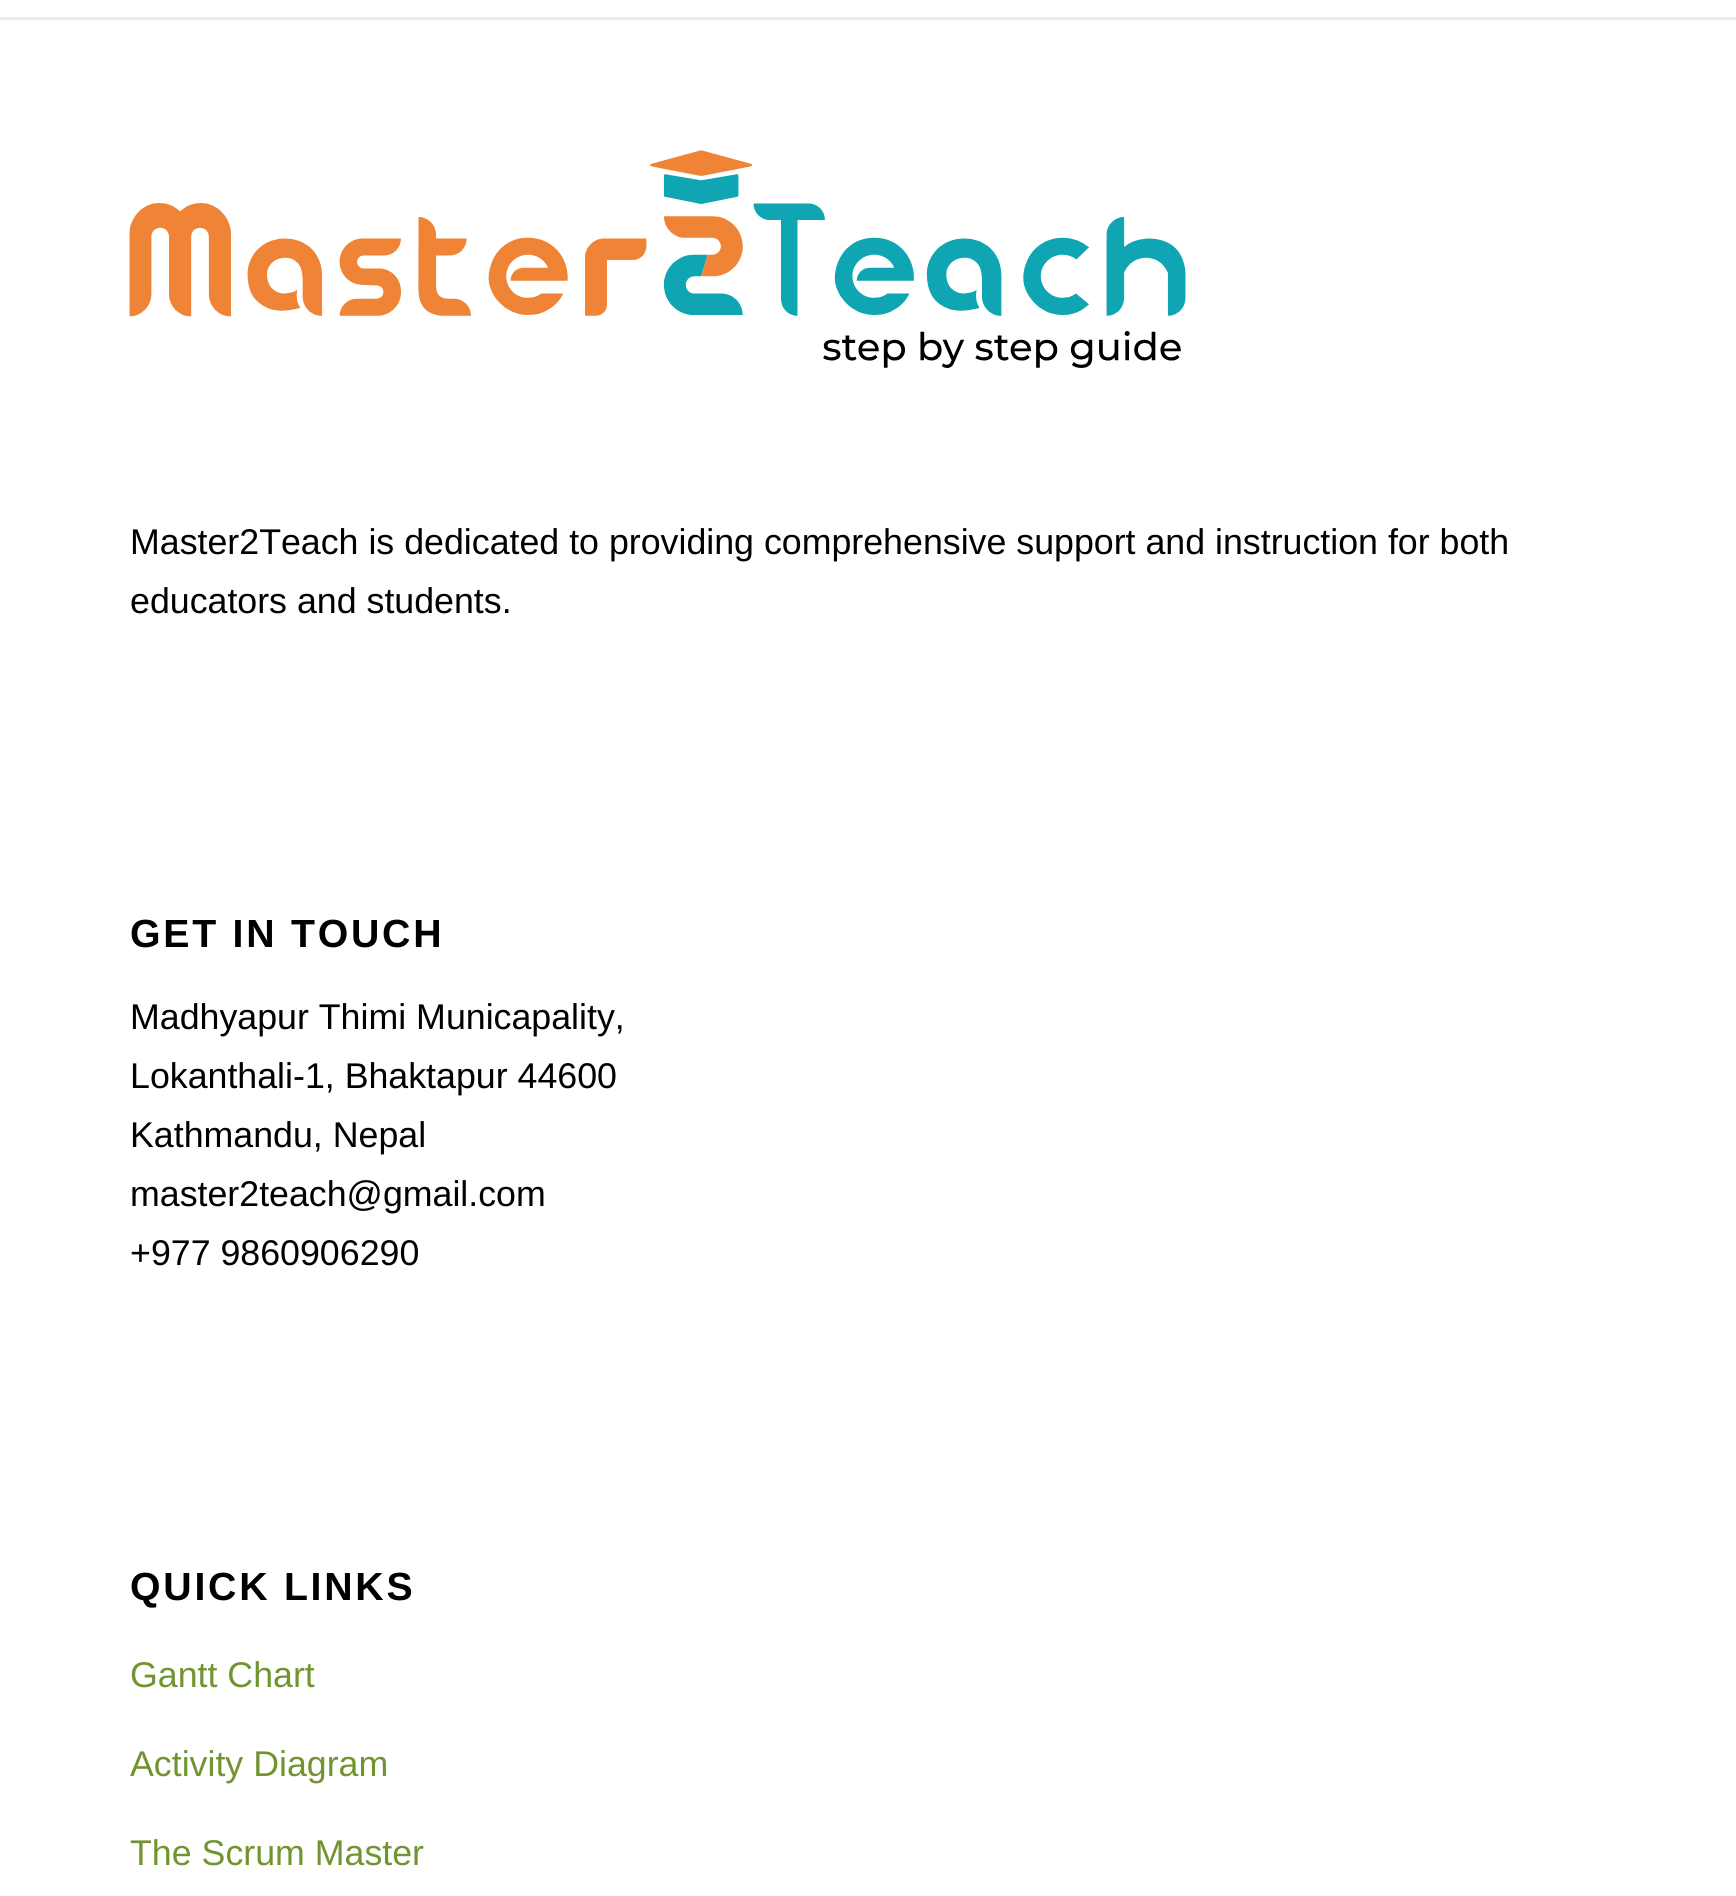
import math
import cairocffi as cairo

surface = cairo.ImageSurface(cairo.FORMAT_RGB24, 1736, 1896)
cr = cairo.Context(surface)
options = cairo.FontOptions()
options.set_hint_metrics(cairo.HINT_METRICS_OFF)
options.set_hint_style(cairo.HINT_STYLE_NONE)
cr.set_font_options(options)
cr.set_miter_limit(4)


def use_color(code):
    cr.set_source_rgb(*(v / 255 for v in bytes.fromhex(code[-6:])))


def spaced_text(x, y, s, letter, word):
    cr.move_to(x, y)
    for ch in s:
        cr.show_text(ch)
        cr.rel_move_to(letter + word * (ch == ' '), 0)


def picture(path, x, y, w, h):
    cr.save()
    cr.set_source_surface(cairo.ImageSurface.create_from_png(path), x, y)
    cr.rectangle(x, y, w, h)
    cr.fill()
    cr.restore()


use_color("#ffffff")
cr.paint()
use_color("#ebebeb")
cr.rectangle(0, 17, 1736, 3)
cr.fill()
picture("img1.png", 129, 150, 1057, 218)
cr.select_font_face("Liberation Sans")
cr.set_font_size(35.75)
use_color("#000000")
cr.move_to(130, 554)
cr.show_text("Master2Teach is dedicated to providing comprehensive support and instruction for both")
cr.move_to(130, 613)
cr.show_text("educators and students.")
cr.select_font_face("Liberation Sans", cairo.FONT_SLANT_NORMAL, cairo.FONT_WEIGHT_BOLD)
cr.set_font_size(39.25)
spaced_text(130, 947, "GET IN TOUCH", 2.75, 0)
cr.select_font_face("Liberation Sans")
cr.set_font_size(35.75)
cr.move_to(130, 1029)
cr.show_text("Madhyapur Thimi Municapality,")
cr.move_to(130, 1088)
cr.show_text("Lokanthali-1, Bhaktapur 44600")
cr.move_to(130, 1147)
cr.show_text("Kathmandu, Nepal")
cr.move_to(130, 1206)
cr.show_text("master2teach@gmail.com")
cr.move_to(130, 1265)
cr.show_text("+977 9860906290")
cr.select_font_face("Liberation Sans", cairo.FONT_SLANT_NORMAL, cairo.FONT_WEIGHT_BOLD)
cr.set_font_size(39.25)
spaced_text(130, 1600, "QUICK LINKS", 2.75, 0)
cr.select_font_face("Liberation Sans")
cr.set_font_size(35.75)
use_color("#719430")
cr.move_to(130, 1687)
cr.show_text("Gantt Chart")
cr.move_to(130, 1776)
cr.show_text("Activity Diagram")
cr.move_to(130, 1865)
cr.show_text("The Scrum Master")
surface.write_to_png("result.png")
